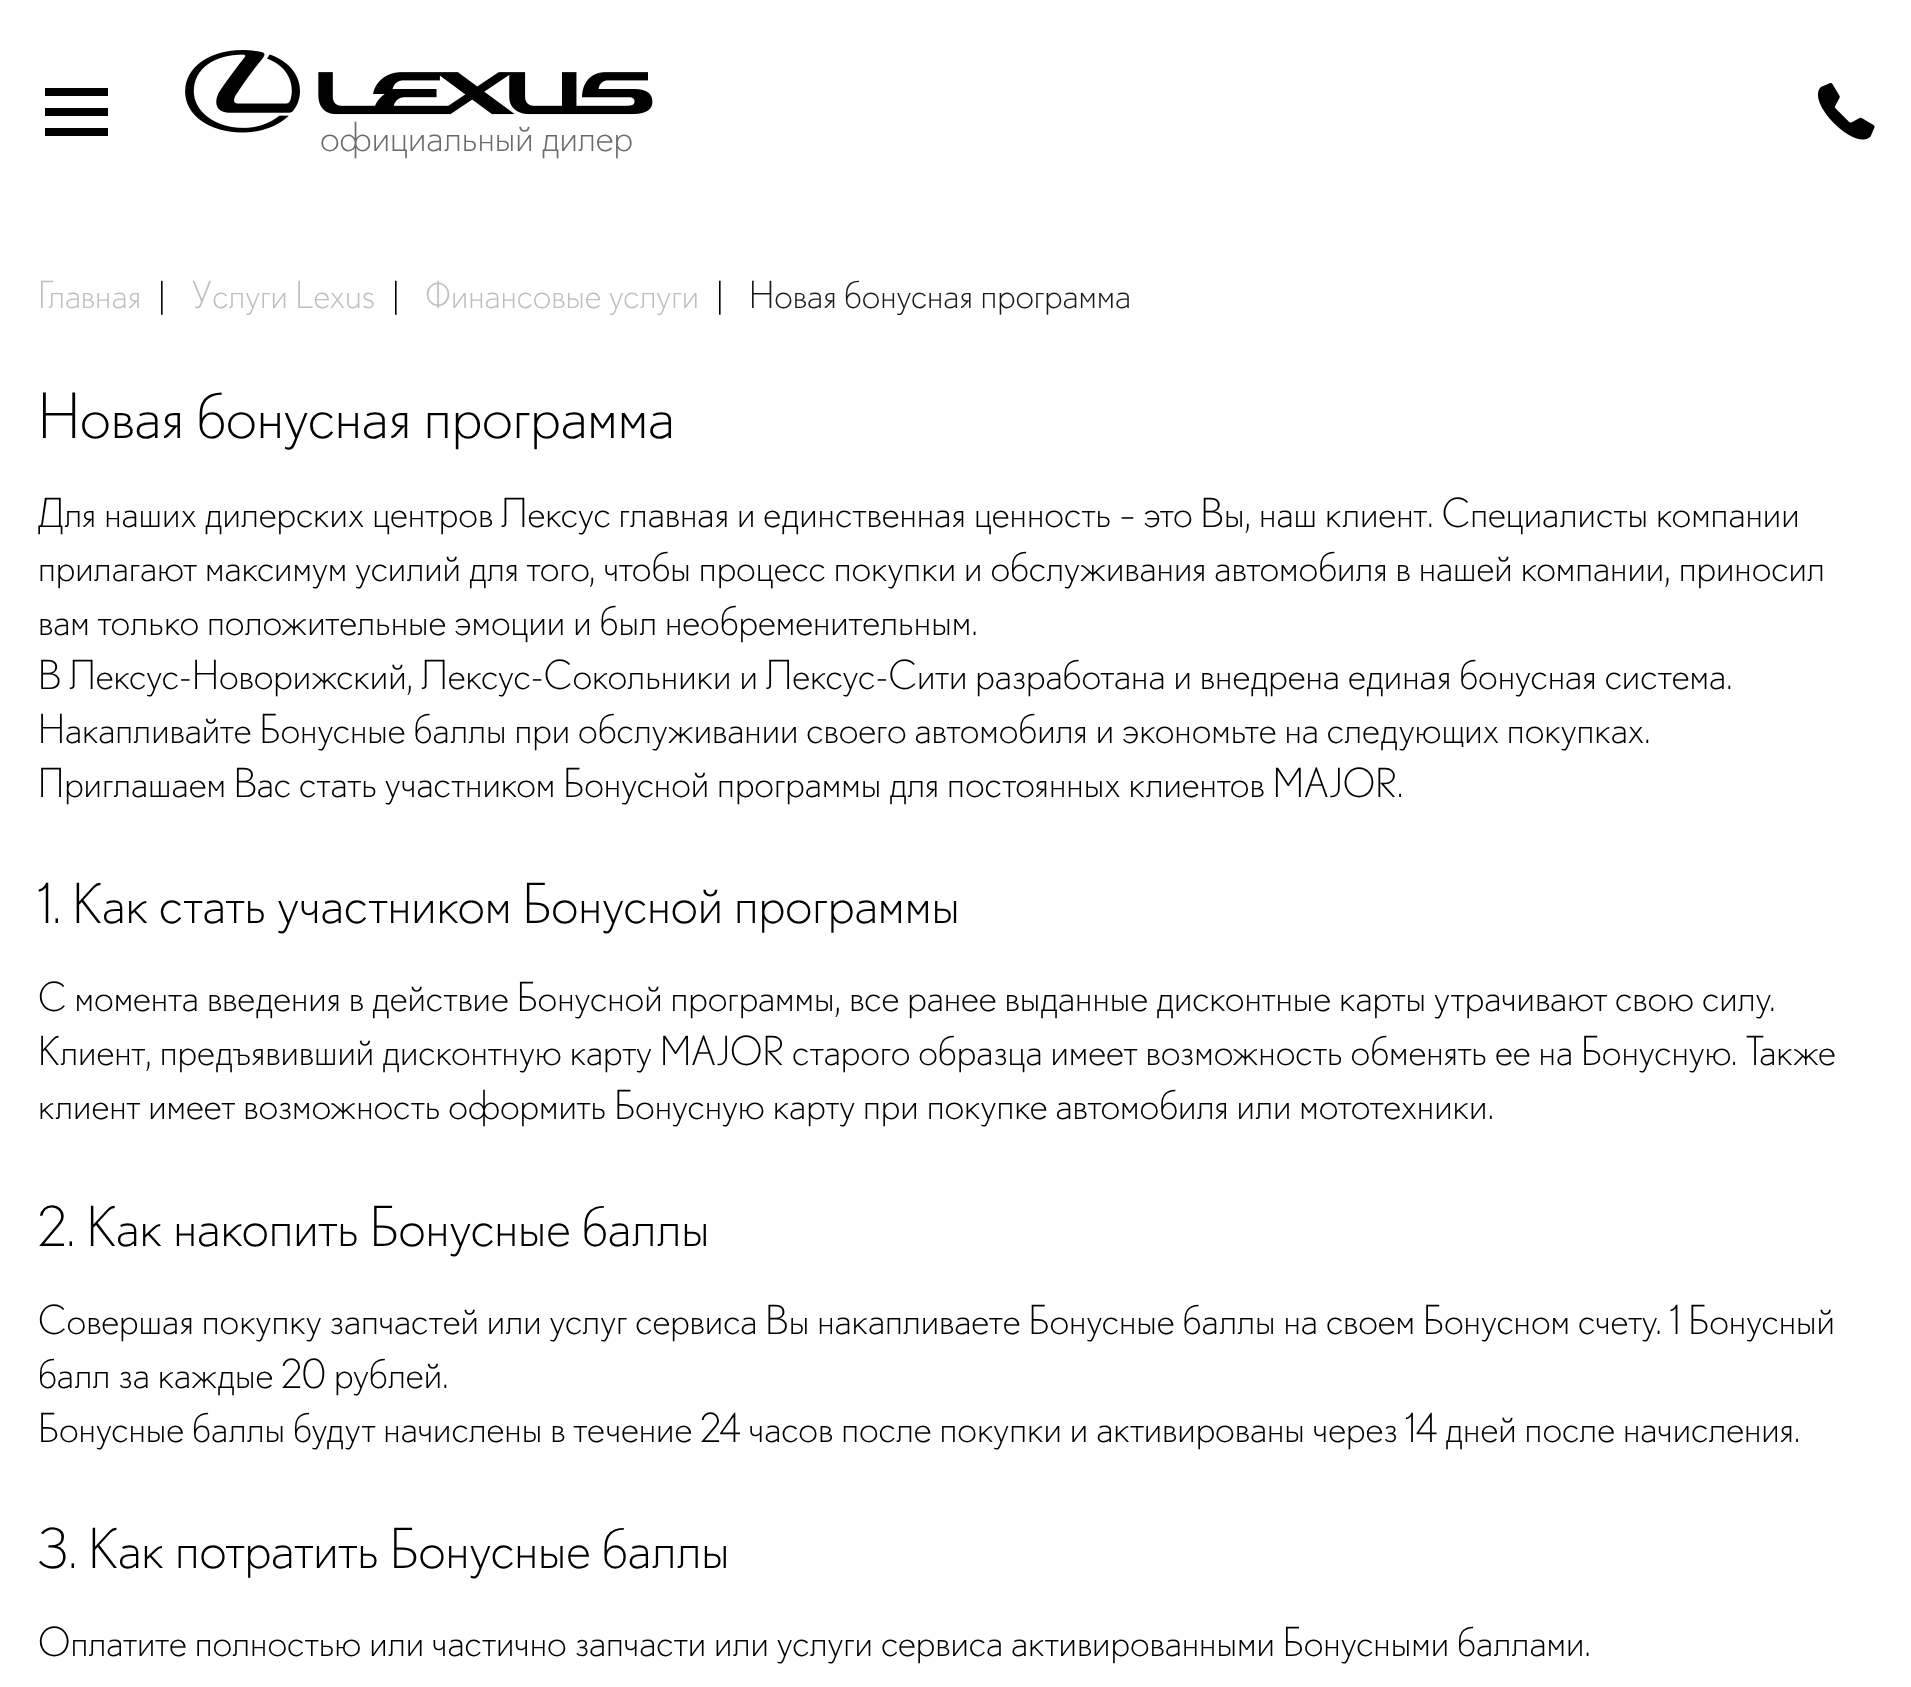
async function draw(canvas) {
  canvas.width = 1911;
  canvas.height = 1687;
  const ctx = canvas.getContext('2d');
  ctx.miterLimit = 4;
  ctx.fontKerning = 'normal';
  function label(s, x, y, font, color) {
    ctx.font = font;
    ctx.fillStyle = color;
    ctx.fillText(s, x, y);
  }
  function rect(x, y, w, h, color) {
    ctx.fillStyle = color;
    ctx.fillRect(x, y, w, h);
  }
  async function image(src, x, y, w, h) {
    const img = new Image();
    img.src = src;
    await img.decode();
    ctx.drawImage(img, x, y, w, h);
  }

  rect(0, 0, 1911, 1687, '#fff');
  rect(45, 88, 63, 8, '#000');
  rect(45, 108, 63, 8, '#000');
  rect(45, 128, 63, 8, '#000');
  await image('assets/img1.png', 1818, 83, 57, 57);
  await image('assets/img2.png', 185, 50, 468, 83);
  label('официальный дилер', 320, 151, '300 40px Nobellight', '#6b6b6b');
  label('Главная', 38, 308, '300 37.5px Nobellight', '#c0bfbf');
  label('|', 158, 308, '300 37.5px Nobellight', '#000');
  label('Услуги Lexus', 191, 308, '300 37.5px Nobellight', '#c0bfbf');
  label('|', 392, 308, '300 37.5px Nobellight', '#000');
  label('Финансовые услуги', 425, 308, '300 37.5px Nobellight', '#c0bfbf');
  label('|', 716, 308, '300 37.5px Nobellight', '#000');
  label('Новая бонусная программа', 749, 308, '300 37.5px Nobellight', '#1a1a1a');
  label('Новая бонусная программа', 38, 438, '300 62.5px Nobellight', '#000');
  label('Для наших дилерских центров Лексус главная и единственная ценность – это Вы, наш клиент. Специалисты компании', 38, 527, '300 40px Nobellight', '#000');
  label('прилагают максимум усилий для того, чтобы процесс покупки и обслуживания автомобиля в нашей компании, приносил', 38, 581, '300 40px Nobellight', '#000');
  label('вам только положительные эмоции и был необременительным.', 38, 635, '300 40px Nobellight', '#000');
  label('В Лексус-Новорижский, Лексус-Сокольники и Лексус-Сити разработана и внедрена единая бонусная система.', 38, 689, '300 40px Nobellight', '#000');
  label('Накапливайте Бонусные баллы при обслуживании своего автомобиля и экономьте на следующих покупках.', 38, 743, '300 40px Nobellight', '#000');
  label('Приглашаем Вас стать участником Бонусной программы для постоянных клиентов MAJOR.', 38, 797, '300 40px Nobellight', '#000');
  label('1. Как стать участником Бонусной программы', 38, 923, '300 55px Nobellight', '#000');
  label('С момента введения в действие Бонусной программы, все ранее выданные дисконтные карты утрачивают свою силу.', 38, 1011, '300 40px Nobellight', '#000');
  label('Клиент, предъявивший дисконтную карту MAJOR старого образца имеет возможность обменять ее на Бонусную. Также', 38, 1065, '300 40px Nobellight', '#000');
  label('клиент имеет возможность оформить Бонусную карту при покупке автомобиля или мототехники.', 38, 1119, '300 40px Nobellight', '#000');
  label('2. Как накопить Бонусные баллы', 38, 1246, '300 55px Nobellight', '#000');
  label('Совершая покупку запчастей или услуг сервиса Вы накапливаете Бонусные баллы на своем Бонусном счету. 1 Бонусный', 38, 1334, '300 40px Nobellight', '#000');
  label('балл за каждые 20 рублей.', 38, 1388, '300 40px Nobellight', '#000');
  label('Бонусные баллы будут начислены в течение 24 часов после покупки и активированы через 14 дней после начисления.', 38, 1442, '300 40px Nobellight', '#000');
  label('3. Как потратить Бонусные баллы', 38, 1568, '300 55px Nobellight', '#000');
  label('Оплатите полностью или частично запчасти или услуги сервиса активированными Бонусными баллами.', 38, 1656, '300 40px Nobellight', '#000');
}

draw(document.querySelector('canvas'));
